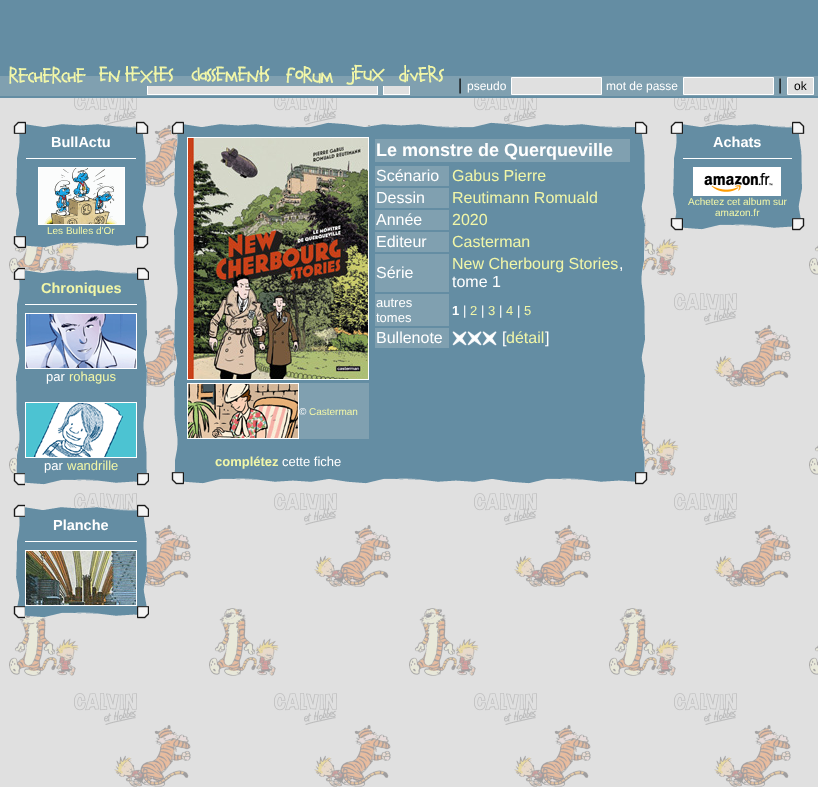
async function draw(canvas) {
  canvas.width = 818;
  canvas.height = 787;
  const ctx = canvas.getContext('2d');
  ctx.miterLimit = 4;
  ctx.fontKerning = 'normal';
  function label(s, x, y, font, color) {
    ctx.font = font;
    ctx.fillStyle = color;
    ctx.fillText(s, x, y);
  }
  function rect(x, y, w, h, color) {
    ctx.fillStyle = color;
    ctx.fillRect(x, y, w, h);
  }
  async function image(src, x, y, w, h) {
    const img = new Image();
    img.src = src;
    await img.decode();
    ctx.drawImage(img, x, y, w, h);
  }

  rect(0, 0, 818, 787, '#e0e0e0');
  await image('assets/img1.png', 9, 98, 809, 689);
  rect(0, 0, 818, 76, '#648da3');
  rect(0, 76, 818, 20, '#80a0b0');
  await image('assets/img2.png', 9, 66, 77, 18);
  rect(148, 86, 229, 8, '#e0e0e0');
  ctx.strokeStyle = '#fff';
  ctx.strokeRect(147.5, 77.5, 230, 17);
  await image('assets/img3.png', 99, 66, 83, 20);
  await image('assets/img4.png', 182, 66, 96, 20);
  await image('assets/img5.png', 278, 66, 62, 20);
  rect(384, 86, 25, 8, '#e0e0e0');
  ctx.strokeRect(383.5, 77.5, 26, 17);
  await image('assets/img6.png', 340, 64, 52, 22);
  await image('assets/img7.png', 392, 65, 60, 21);
  rect(0, 96, 818, 2, '#648da3');
  label('|', 458, 90, '16px Liberation Sans', '#000');
  label('pseudo', 467, 90, '12px Liberation Sans', '#fff');
  ctx.fillStyle = '#e0e0e0';
  ctx.beginPath();
  ctx.rect(511.5, 77.5, 90, 17);
  ctx.fill();
  ctx.stroke();
  label('mot de passe', 606, 90, '12px Liberation Sans', '#fff');
  ctx.fillStyle = '#e0e0e0';
  ctx.beginPath();
  ctx.rect(683.5, 77.5, 90, 17);
  ctx.fill();
  ctx.stroke();
  label('|', 778, 90, '16px Liberation Sans', '#000');
  ctx.fillStyle = '#e0e0e0';
  ctx.beginPath();
  ctx.rect(787.5, 77.5, 26, 17);
  ctx.fill();
  ctx.stroke();
  label('ok', 794, 90, '12px Liberation Sans', '#000');
  await image('assets/img8.png', 13, 121, 13, 13);
  await image('assets/img9.png', 26, 124, 110, 10);
  await image('assets/img10.png', 136, 121, 13, 13);
  await image('assets/img11.png', 16, 134, 10, 102);
  rect(26, 134, 110, 102, '#648da3');
  label('BullActu', 51, 147, 'bold 14.5px Liberation Sans', '#fff');
  rect(26, 158, 110, 1, '#fff');
  ctx.strokeRect(38.5, 167.5, 86, 57);
  await image('assets/img12.png', 39, 168, 85, 56);
  label('Les Bulles d\'Or', 47, 234, '10px Liberation Sans', '#f1f6a8');
  await image('assets/img13.png', 136, 134, 10, 102);
  await image('assets/img14.png', 13, 236, 13, 13);
  await image('assets/img15.png', 26, 236, 110, 12);
  await image('assets/img16.png', 136, 236, 13, 13);
  await image('assets/img17.png', 13, 267, 12, 13);
  await image('assets/img18.png', 25, 270, 112, 10);
  await image('assets/img19.png', 137, 267, 12, 13);
  await image('assets/img20.png', 16, 280, 9, 193);
  rect(25, 280, 112, 193, '#648da3');
  label('Chroniques', 41, 293, 'bold 14.5px Liberation Sans', '#f1f6a8');
  rect(25, 304, 112, 1, '#fff');
  ctx.strokeRect(25.5, 313.5, 111, 55);
  await image('assets/img21.png', 26, 314, 110, 54);
  label('par', 46, 381, '13px Liberation Sans', '#fff');
  label('rohagus', 69, 381, '13px Liberation Sans', '#f1f6a8');
  ctx.strokeRect(25.5, 402.5, 111, 55);
  await image('assets/img22.png', 26, 403, 110, 54);
  label('par', 44, 470, '13px Liberation Sans', '#fff');
  label('wandrille', 67, 470, '13px Liberation Sans', '#f1f6a8');
  await image('assets/img23.png', 137, 280, 10, 193);
  await image('assets/img24.png', 13, 473, 12, 13);
  await image('assets/img25.png', 25, 473, 112, 12);
  await image('assets/img26.png', 137, 473, 12, 13);
  await image('assets/img27.png', 13, 504, 12, 13);
  await image('assets/img28.png', 25, 507, 112, 10);
  await image('assets/img19.png', 137, 504, 12, 13);
  await image('assets/img29.png', 16, 517, 9, 89);
  rect(25, 517, 112, 33, '#648da3');
  label('Planche', 53, 530, 'bold 14.5px Liberation Sans', '#fff');
  rect(25, 541, 112, 1, '#fff');
  ctx.strokeRect(25.5, 550.5, 111, 55);
  await image('assets/img30.png', 26, 551, 110, 54);
  await image('assets/img31.png', 137, 517, 10, 89);
  await image('assets/img24.png', 13, 606, 12, 13);
  await image('assets/img32.png', 25, 606, 112, 12);
  await image('assets/img26.png', 137, 606, 12, 13);
  await image('assets/img8.png', 171, 121, 13, 13);
  await image('assets/img33.png', 184, 122, 451, 12);
  await image('assets/img10.png', 635, 121, 13, 13);
  await image('assets/img34.png', 174, 134, 10, 338);
  rect(184, 134, 451, 338, '#648da3');
  rect(375, 139, 255, 23, '#80a0b0');
  label('Le monstre de Querqueville', 376, 156, 'bold 18px Liberation Sans', '#fff');
  rect(375, 166, 74, 20, '#80a0b0');
  label('Scénario', 376, 181, '16px Liberation Sans', '#fff');
  label('Gabus Pierre', 452, 181, '16px Liberation Sans', '#f1f6a8');
  rect(375, 188, 74, 20, '#80a0b0');
  label('Dessin', 376, 203, '16px Liberation Sans', '#fff');
  label('Reutimann Romuald', 452, 203, '16px Liberation Sans', '#f1f6a8');
  rect(375, 210, 74, 20, '#80a0b0');
  label('Année', 376, 225, '16px Liberation Sans', '#fff');
  label('2020', 452, 225, '16px Liberation Sans', '#f1f6a8');
  rect(375, 232, 74, 20, '#80a0b0');
  label('Editeur', 376, 247, '16px Liberation Sans', '#fff');
  label('Casterman', 452, 247, '16px Liberation Sans', '#f1f6a8');
  rect(375, 254, 74, 38, '#80a0b0');
  label('Série', 376, 278, '16px Liberation Sans', '#fff');
  label('New Cherbourg Stories', 452, 269, '16px Liberation Sans', '#f1f6a8');
  label(',', 619, 269, '16px Liberation Sans', '#fff');
  label('tome 1', 452, 287, '16px Liberation Sans', '#fff');
  rect(375, 294, 74, 32, '#80a0b0');
  label('autres', 376, 307, '13px Liberation Sans', '#fff');
  label('tomes', 376, 322, '13px Liberation Sans', '#fff');
  label('1', 452, 315, 'bold 13px Liberation Sans', '#fff');
  label('|', 463, 315, '13px Liberation Sans', '#fff');
  label('2', 470, 315, '13px Liberation Sans', '#f1f6a8');
  label('|', 481, 315, '13px Liberation Sans', '#fff');
  label('3', 488, 315, '13px Liberation Sans', '#f1f6a8');
  label('|', 499, 315, '13px Liberation Sans', '#fff');
  label('4', 506, 315, '13px Liberation Sans', '#f1f6a8');
  label('|', 517, 315, '13px Liberation Sans', '#fff');
  label('5', 524, 315, '13px Liberation Sans', '#f1f6a8');
  rect(375, 328, 74, 20, '#80a0b0');
  label('Bullenote', 376, 343, '16px Liberation Sans', '#fff');
  await image('assets/img35.png', 452, 331, 15, 15);
  await image('assets/img35.png', 467, 331, 15, 15);
  await image('assets/img35.png', 482, 331, 15, 15);
  label('[', 502, 343, '16px Liberation Sans', '#fff');
  label('détail', 506, 343, '16px Liberation Sans', '#f1f6a8');
  label(']', 545, 343, '16px Liberation Sans', '#fff');
  ctx.strokeRect(187.5, 137.5, 181, 242);
  await image('assets/img36.png', 188, 138, 180, 241);
  ctx.strokeRect(187.5, 383.5, 111, 55);
  await image('assets/img37.png', 188, 384, 110, 54);
  rect(299, 383, 70, 56, '#80a0b0');
  label('©', 299, 415, '10px Liberation Sans', '#fff');
  label('Casterman', 309, 415, '10px Liberation Sans', '#f1f6a8');
  label('complétez', 215, 466, 'bold 13px Liberation Sans', '#f1f6a8');
  label('cette fiche', 282, 466, '13px Liberation Sans', '#fff');
  await image('assets/img38.png', 635, 134, 10, 338);
  await image('assets/img39.png', 171, 472, 13, 13);
  await image('assets/img40.png', 184, 472, 451, 12);
  await image('assets/img16.png', 635, 472, 13, 13);
  await image('assets/img8.png', 670, 121, 13, 13);
  await image('assets/img41.png', 683, 124, 109, 10);
  await image('assets/img10.png', 792, 121, 13, 13);
  await image('assets/img42.png', 673, 134, 10, 84);
  rect(683, 134, 109, 84, '#648da3');
  label('Achats', 713, 147, 'bold 14.5px Liberation Sans', '#fff');
  rect(683, 158, 109, 1, '#fff');
  ctx.strokeRect(693.5, 167.5, 87, 28);
  await image('assets/img43.png', 694, 168, 86, 27);
  label('Achetez cet album sur', 688, 205, '10px Liberation Sans', '#f1f6a8');
  label('amazon.fr', 715, 216, '10px Liberation Sans', '#f1f6a8');
  await image('assets/img44.png', 792, 134, 10, 84);
  await image('assets/img39.png', 670, 218, 13, 13);
  await image('assets/img45.png', 683, 218, 109, 12);
  await image('assets/img16.png', 792, 218, 13, 13);
}

draw(document.querySelector('canvas'));
